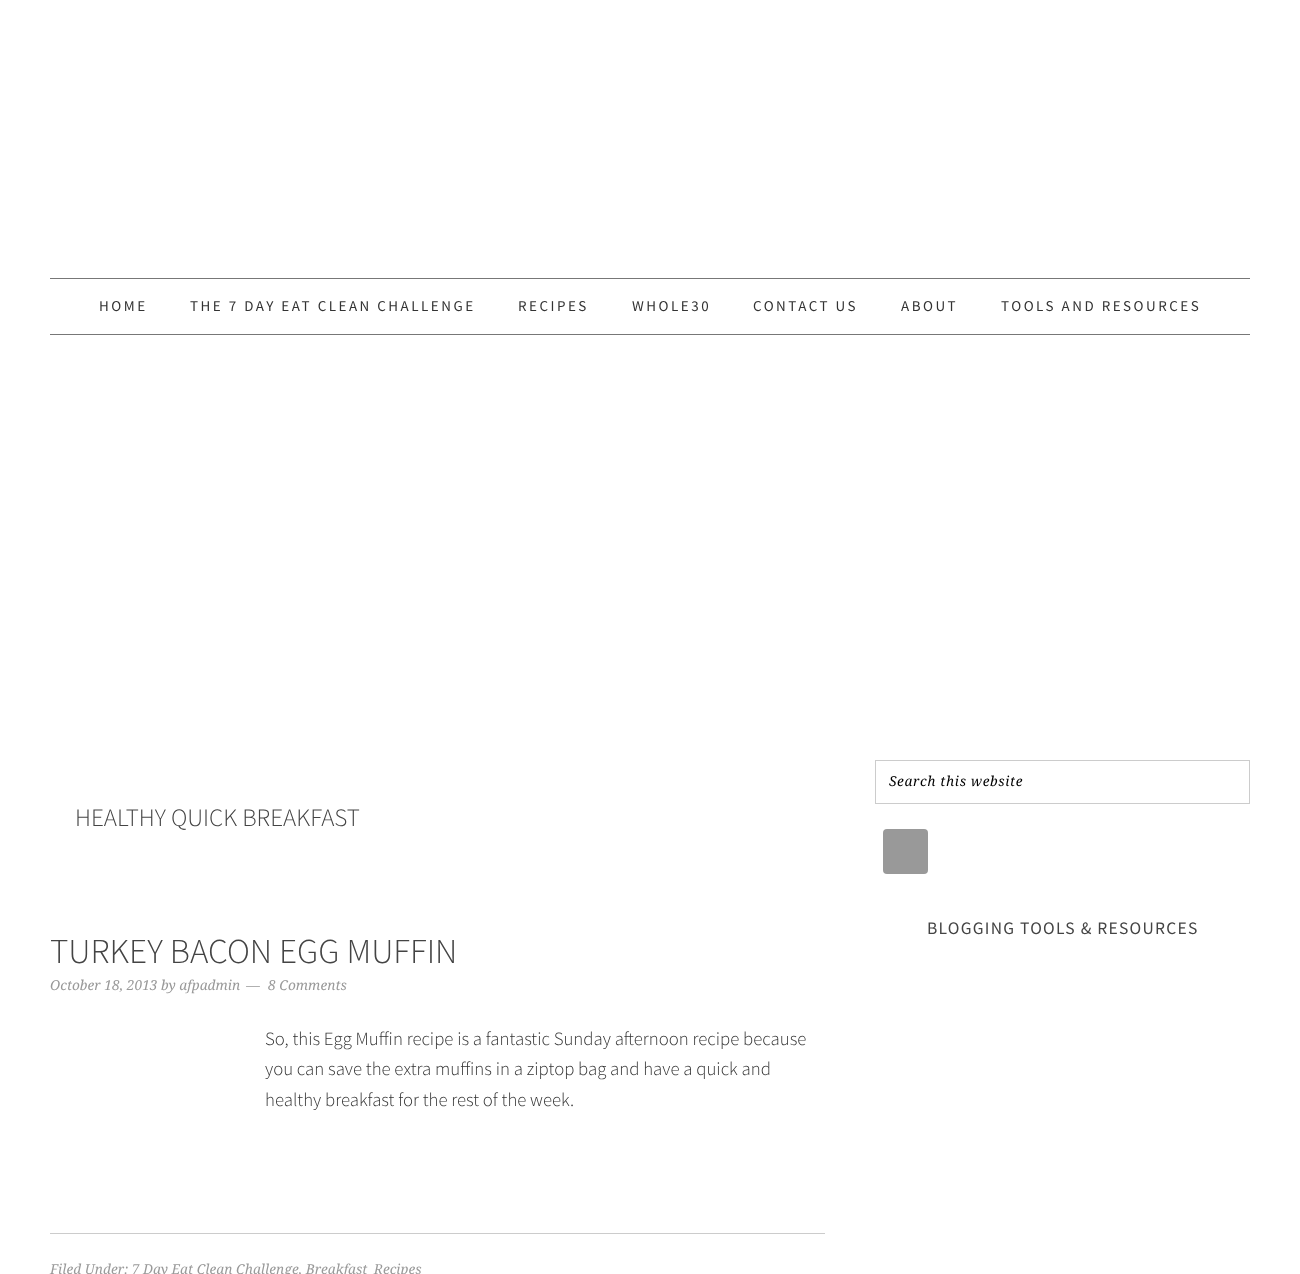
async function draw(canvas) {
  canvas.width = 1300;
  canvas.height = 1274;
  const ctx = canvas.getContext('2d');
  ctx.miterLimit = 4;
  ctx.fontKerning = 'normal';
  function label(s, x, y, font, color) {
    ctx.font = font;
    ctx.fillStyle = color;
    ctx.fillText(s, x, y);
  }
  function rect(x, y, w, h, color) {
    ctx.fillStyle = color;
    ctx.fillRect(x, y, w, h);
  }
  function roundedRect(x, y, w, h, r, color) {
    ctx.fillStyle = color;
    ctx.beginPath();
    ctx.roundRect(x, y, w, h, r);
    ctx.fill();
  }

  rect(0, 0, 1300, 1274, '#fff');
  rect(50, 278, 1200, 1, '#777');
  rect(50, 334, 1200, 1, '#777');
  ctx.letterSpacing = '2.5px';
  label('HOME', 99, 311, '15px Source Sans Pro', '#333');
  label('THE 7 DAY EAT CLEAN CHALLENGE', 190, 311, '15px Source Sans Pro', '#333');
  label('RECIPES', 518, 311, '15px Source Sans Pro', '#333');
  label('WHOLE30', 632, 311, '15px Source Sans Pro', '#333');
  label('CONTACT US', 753, 311, '15px Source Sans Pro', '#333');
  label('ABOUT', 901, 311, '15px Source Sans Pro', '#333');
  label('TOOLS AND RESOURCES', 1001, 311, '15px Source Sans Pro', '#333');
  ctx.letterSpacing = '0px';
  label('HEALTHY QUICK BREAKFAST', 75, 826, '300 25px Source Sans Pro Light', '#444');
  label('TURKEY BACON EGG MUFFIN', 50, 963, '300 35px Source Sans Pro Light', '#444');
  label('October 18, 2013 by afpadmin', 50, 990, 'italic 13.75px Droid Serif', '#999');
  label('—', 246, 990, 'italic 13.75px Droid Serif', '#999');
  label('8 Comments', 268, 990, 'italic 13.75px Droid Serif', '#999');
  label('So, this Egg Muffin recipe is a fantastic Sunday afternoon recipe because', 265, 1045, '300 18.75px Source Sans Pro Light', '#333');
  label('you can save the extra muffins in a ziptop bag and have a quick and', 265, 1075, '300 18.75px Source Sans Pro Light', '#333');
  label('healthy breakfast for the rest of the week.', 265, 1106, '300 18.75px Source Sans Pro Light', '#333');
  rect(50, 1233, 775, 1, '#ccc');
  label('Filed Under: 7 Day Eat Clean Challenge, Breakfast', 50, 1274, 'italic 13.75px Droid Serif', '#999');
  label('Recipes', 374, 1274, 'italic 13.75px Droid Serif', '#999');
  ctx.strokeStyle = '#ccc';
  ctx.strokeRect(875.5, 760.5, 374, 43);
  ctx.letterSpacing = '0.6px';
  label('Search this website', 889, 786, 'italic 13.75px Droid Serif', '#000');
  roundedRect(883, 829, 45, 45, 4, '#999');
  ctx.letterSpacing = '1.25px';
  label('BLOGGING TOOLS & RESOURCES', 927, 934, '17.5px Source Sans Pro', '#444');
}

draw(document.querySelector('canvas'));
